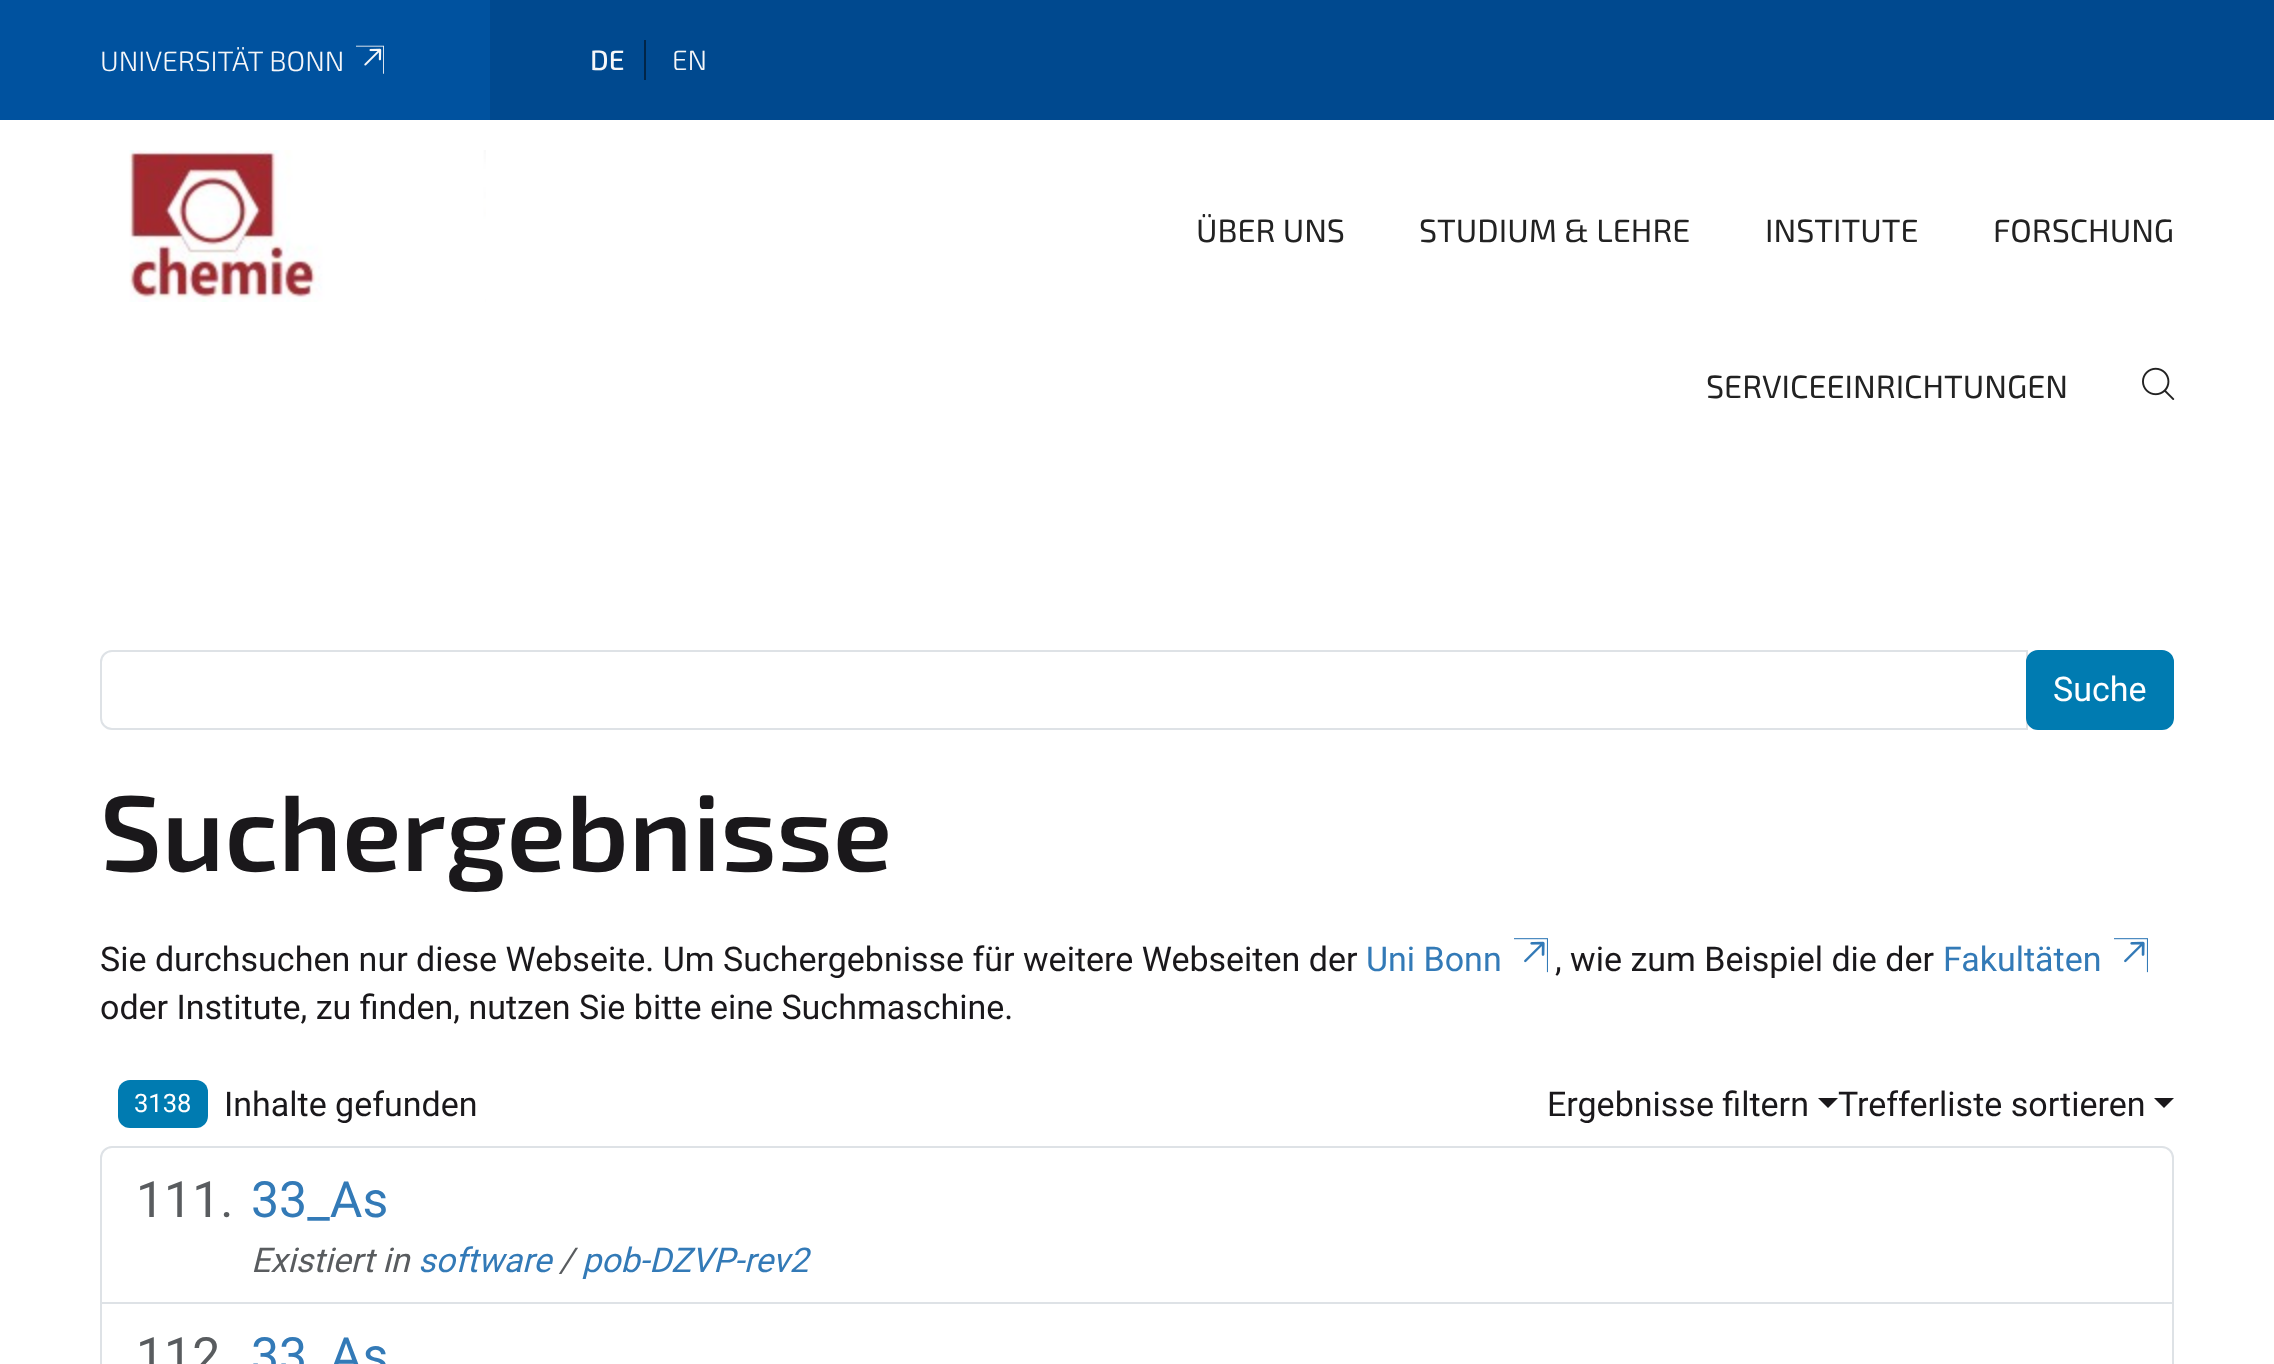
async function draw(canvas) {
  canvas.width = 2274;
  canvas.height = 1364;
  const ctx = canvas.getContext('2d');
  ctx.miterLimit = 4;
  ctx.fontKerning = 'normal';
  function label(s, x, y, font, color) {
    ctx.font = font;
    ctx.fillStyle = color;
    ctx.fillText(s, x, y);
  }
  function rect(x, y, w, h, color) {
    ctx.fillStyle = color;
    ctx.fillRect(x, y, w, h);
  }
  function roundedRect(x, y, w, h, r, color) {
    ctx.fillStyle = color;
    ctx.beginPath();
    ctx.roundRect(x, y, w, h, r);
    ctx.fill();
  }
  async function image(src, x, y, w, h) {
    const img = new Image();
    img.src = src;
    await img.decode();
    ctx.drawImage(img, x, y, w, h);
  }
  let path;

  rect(0, 0, 2274, 1364, '#fff');
  rect(490, 0, 1784, 120, '#00498f');
  rect(0, 0, 490, 120, '#00529f');
  label('UNIVERSITÄT BONN', 100, 71, '300 28px "Exo 2"', '#f6f7f9');
  await image('assets/img1.png', 356, 45, 28, 29);
  rect(644, 40, 2, 40, '#012548');
  label('DE', 590, 70, '500 28px "Exo 2"', '#f6f7f9');
  label('EN', 672, 70, '300 28px "Exo 2"', '#f6f7f9');
  await image('assets/img2.png', 129, 150, 357, 152);
  label('ÜBER UNS', 1196, 242, '32.25px "Exo 2"', '#222');
  label('STUDIUM & LEHRE', 1419, 242, '32.25px "Exo 2"', '#222');
  label('INSTITUTE', 1765, 242, '32.25px "Exo 2"', '#222');
  label('FORSCHUNG', 1993, 242, '32.25px "Exo 2"', '#222');
  label('SERVICEEINRICHTUNGEN', 1706, 398, '32.25px "Exo 2"', '#222');
  await image('assets/img3.png', 2142, 367, 33, 33);
  ctx.beginPath();
  ctx.roundRect(101, 651, 1926, 78, [11, 0, 0, 11]);
  ctx.strokeStyle = '#dee2e6';
  ctx.lineWidth = 2;
  ctx.stroke();
  ctx.fillStyle = '#007bb1';
  ctx.beginPath();
  ctx.roundRect(2027, 651, 146, 78, 11);
  ctx.fill();
  ctx.strokeStyle = '#007bb1';
  ctx.stroke();
  label('Suche', 2053, 701, '34px Roboto', '#fff');
  label('Suchergebnisse', 100, 871, '600 107.5px "Exo 2"', '#1a181b');
  label('Sie durchsuchen nur diese Webseite. Um Suchergebnisse für weitere Webseiten der', 100, 971, '34px Roboto', '#1a181b');
  label('Uni Bonn', 1366, 971, '34px Roboto', '#337ab7');
  await image('assets/img4.png', 1514, 938, 34, 35);
  label(', wie zum Beispiel die der', 1555, 971, '34px Roboto', '#1a181b');
  label('Fakultäten', 1943, 971, '34px Roboto', '#337ab7');
  await image('assets/img4.png', 2114, 938, 34, 35);
  label('oder Institute, zu finden, nutzen Sie bitte eine Suchmaschine.', 100, 1019, '34px Roboto', '#1a181b');
  roundedRect(118, 1080, 90, 48, 12, '#007bb1');
  label('3138', 134, 1112, '25.5px Roboto', '#fff');
  label('Inhalte gefunden', 224, 1116, '34px Roboto', '#1a181b');
  label('Ergebnisse filtern', 1547, 1116, '34px Roboto', '#1a181b');
  path = new Path2D('M1818 1098H1838L1828 1108Z');
  ctx.fill(path);
  label('Trefferliste sortieren', 1838, 1116, '34px Roboto', '#1a181b');
  path = new Path2D('M2154 1098H2174L2164 1108Z');
  ctx.fill(path);
  ctx.beginPath();
  ctx.roundRect(101, 1147, 2072, 156, [11, 11, 0, 0]);
  ctx.strokeStyle = '#dee2e6';
  ctx.stroke();
  label('111.', 136, 1217, '50px Roboto', '#595c5f');
  label('33_As', 251, 1217, '50px Roboto', '#337ab7');
  label('Existiert in', 251, 1272, 'italic 34px Roboto', '#595c5f');
  label('software', 418, 1272, 'italic 34px Roboto', '#337ab7');
  label('/', 559, 1272, 'italic 34px Roboto', '#595c5f');
  label('pob-DZVP-rev2', 582, 1272, 'italic 34px Roboto', '#337ab7');
  rect(2172, 1304, 2, 60, '#dee2e6');
  rect(100, 1304, 2, 60, '#dee2e6');
  label('112', 136, 1373, '50px Roboto', '#595c5f');
  label('33_As', 251, 1373, '50px Roboto', '#337ab7');
}

draw(document.querySelector('canvas'));
